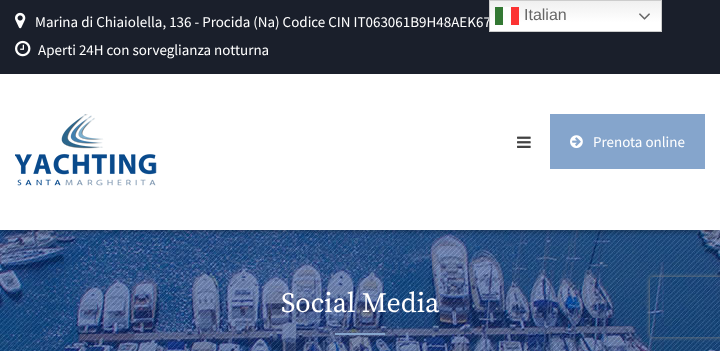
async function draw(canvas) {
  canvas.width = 720;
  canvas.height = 351;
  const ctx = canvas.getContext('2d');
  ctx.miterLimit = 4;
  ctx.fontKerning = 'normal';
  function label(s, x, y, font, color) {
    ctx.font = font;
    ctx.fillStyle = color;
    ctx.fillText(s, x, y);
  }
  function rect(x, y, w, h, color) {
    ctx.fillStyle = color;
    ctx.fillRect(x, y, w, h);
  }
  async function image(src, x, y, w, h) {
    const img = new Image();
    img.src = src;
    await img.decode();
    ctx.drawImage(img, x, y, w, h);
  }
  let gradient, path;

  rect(0, 0, 720, 351, '#fff');
  rect(0, 0, 720, 74, '#1a1f2b');
  label('Marina di Chiaiolella, 136 - Procida (Na) Codice CIN IT063061B9H48AEK67', 35, 27, '15px Source Sans Pro', '#fff');
  gradient = ctx.createLinearGradient(576, 0, 576, 32);
  gradient.addColorStop(0, '#efefef');
  gradient.addColorStop(0.7, '#fff');
  ctx.fillStyle = gradient;
  ctx.fillRect(490, 1, 171, 30);
  ctx.strokeStyle = '#ccc';
  ctx.strokeRect(489.5, 0.5, 172, 31);
  rect(495, 7, 8, 18, '#337833');
  rect(503, 7, 8, 18, '#ffffffcc');
  rect(511, 7, 8, 18, '#fc3333');
  label('Italian', 524, 20, '16px Liberation Sans', '#666');
  await image('assets/img1.png', 639, 13, 11, 7);
  await image('assets/img2.png', 15, 12, 11, 17);
  await image('assets/img3.png', 15, 40, 16, 17);
  label('Aperti 24H con sorveglianza notturna', 38, 55, '15px Source Sans Pro', '#fff');
  await image('assets/img7.png', 0, 230, 720, 121);
  ctx.save();
  ctx.beginPath();
  ctx.rect(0, 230, 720, 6);
  ctx.clip();
  ctx.fillStyle = '#0000004d';
  ctx.filter = 'blur(2.5px)';
  ctx.beginPath();
  ctx.rect(1, 78, 718, 154);
  ctx.fill();
  ctx.filter = 'none';
  ctx.restore();
  await image('assets/img4.png', 15, 114, 142, 72);
  await image('assets/img5.png', 517, 136, 14, 12);
  rect(550, 114, 155, 55, '#85a5cc');
  await image('assets/img6.png', 570, 135, 13, 14);
  label('Prenota online', 593, 147, '15px Source Sans Pro', '#fff');
  label('Social Media', 281, 312, '28px Source Serif Pro', '#fff');
  rect(335, 333, 50, 2, '#85a5cc');
  ctx.save();
  path = new Path2D('M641 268H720V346H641ZM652 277H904C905 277 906 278 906 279V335C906 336 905 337 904 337H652C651 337 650 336 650 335V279C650 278 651 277 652 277Z');
  ctx.clip(path, 'evenodd');
  ctx.fillStyle = '#808080';
  ctx.filter = 'blur(2.5px)';
  ctx.beginPath();
  ctx.roundRect(650, 277, 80, 60, 2);
  ctx.fill();
  ctx.filter = 'none';
  ctx.restore();
}

draw(document.querySelector('canvas'));
